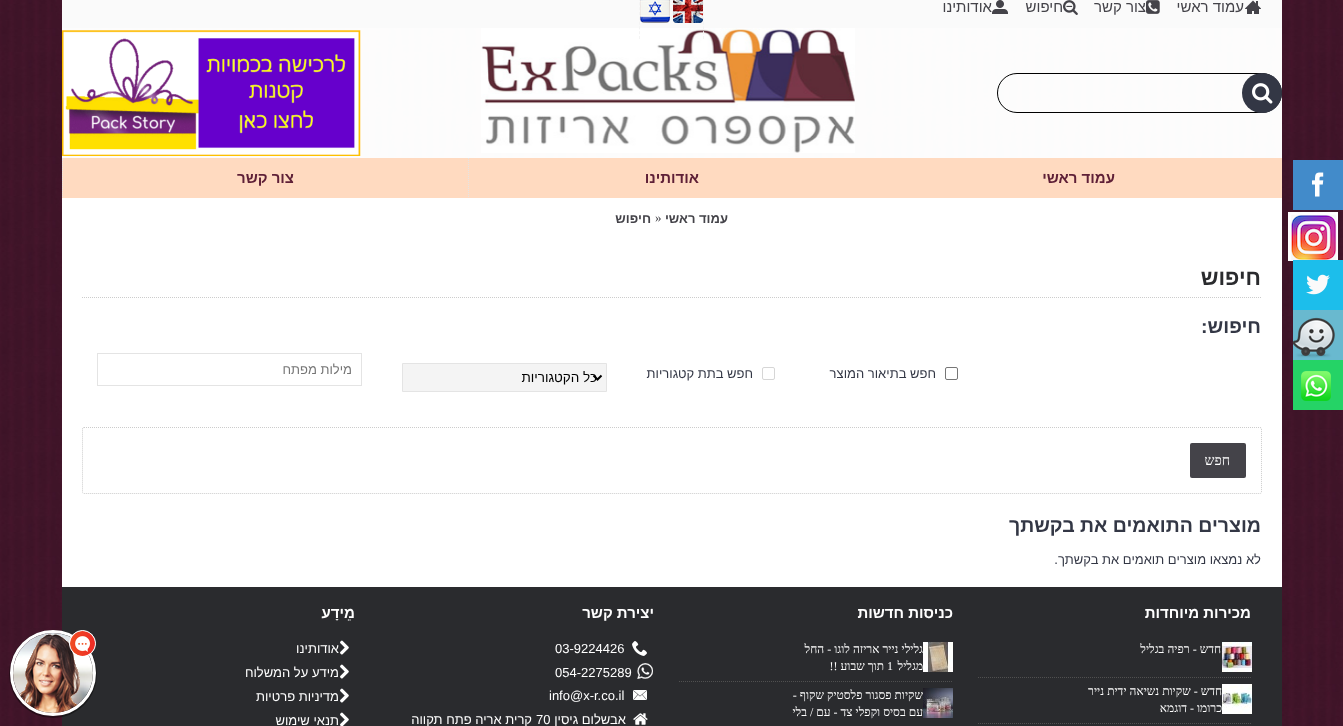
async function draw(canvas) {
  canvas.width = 1343;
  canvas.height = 726;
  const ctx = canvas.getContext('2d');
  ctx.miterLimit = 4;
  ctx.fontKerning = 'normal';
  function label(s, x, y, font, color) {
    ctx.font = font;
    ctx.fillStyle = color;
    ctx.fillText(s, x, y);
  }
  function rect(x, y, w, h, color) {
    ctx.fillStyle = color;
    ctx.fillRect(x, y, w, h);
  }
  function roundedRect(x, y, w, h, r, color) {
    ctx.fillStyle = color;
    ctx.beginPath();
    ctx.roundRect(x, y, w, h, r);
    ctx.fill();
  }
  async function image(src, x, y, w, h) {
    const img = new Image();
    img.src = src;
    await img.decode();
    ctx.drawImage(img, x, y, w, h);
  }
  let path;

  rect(0, 0, 1343, 726, '#fff');
  await image('assets/img1.png', 0, 0, 1343, 726);
  rect(1293, 160, 50, 50, '#428bca');
  await image('assets/img2.png', 1312, 172, 12, 25);
  rect(62, 28, 1220, 130, '#fffffffc');
  rect(62, 0, 1220, 28, '#fafafa');
  await image('assets/img3.png', 1245, 0, 16, 14);
  ctx.direction = 'rtl';
  label('עמוד ראשי', 1244, 12, '15px Liberation Sans', '#444349');
  await image('assets/img4.png', 1146, 0, 14, 14);
  label('צור קשר', 1146, 12, '15px Liberation Sans', '#444349');
  await image('assets/img5.png', 1063, 0, 15, 15);
  label('חיפוש', 1063, 12, '15px Liberation Sans', '#444349');
  await image('assets/img6.png', 992, 0, 16, 14);
  label('אודותינו', 992, 12, '15px Liberation Sans', '#444349');
  await image('assets/img10.png', 481, 28, 374, 125);
  path = new Path2D('M703.5-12V39');
  ctx.strokeStyle = '#f4f4f4';
  ctx.setLineDash([3, 1.8]);
  ctx.stroke(path);
  path = new Path2D('M639.5-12V39');
  ctx.stroke(path);
  await image('assets/img7.png', 673, 0, 30, 23);
  await image('assets/img8.png', 640, 0, 30, 23);
  ctx.beginPath();
  ctx.roundRect(997.5, 73.5, 284, 39, 19.5);
  ctx.strokeStyle = '#000';
  ctx.setLineDash([]);
  ctx.stroke();
  ctx.fillStyle = '#333745';
  ctx.beginPath();
  ctx.arc(1262, 93, 20, 0, 2 * Math.PI);
  ctx.fill();
  await image('assets/img9.png', 1252, 83, 21, 21);
  await image('assets/img11.png', 62, 30, 299, 126);
  rect(62, 158, 1220, 40, '#ffdac0');
  label('עמוד ראשי', 1115, 183, 'bold 15px Liberation Sans', '#5f2037');
  path = new Path2D('M468.5 158V198');
  ctx.strokeStyle = '#e4e4e4';
  ctx.setLineDash([1, 1]);
  ctx.stroke(path);
  label('אודותינו', 699, 183, 'bold 15px Liberation Sans', '#5f2037');
  path = new Path2D('M62.5 158V198');
  ctx.stroke(path);
  label('צור קשר', 294, 183, 'bold 15px Liberation Sans', '#5f2037');
  rect(62, 198, 1220, 389, '#fff');
  label('עמוד ראשי', 728, 223, 'bold 13px Liberation Sans', '#444349');
  ctx.direction = 'ltr';
  label('»', 655, 222, '13px Liberation Serif', '#444349');
  ctx.direction = 'rtl';
  label('חיפוש', 651, 223, 'bold 13px Liberation Sans', '#444349');
  path = new Path2D('M82 297.5H1262');
  ctx.strokeStyle = '#ccc';
  ctx.stroke(path);
  label('חיפוש', 1261, 285, 'bold 22px Liberation Sans', '#2a2b2e');
  label('חיפוש:', 1261, 333, 'bold 19.5px Liberation Sans', '#333745');
  ctx.beginPath();
  ctx.roundRect(945.5, 367.5, 12, 12, 1.5);
  ctx.strokeStyle = '#767676';
  ctx.setLineDash([]);
  ctx.stroke();
  label('חפש בתיאור המוצר', 936, 378, '13px Liberation Sans', '#333745');
  ctx.beginPath();
  ctx.roundRect(762.5, 367.5, 12, 12, 1.5);
  ctx.strokeStyle = '#d6d6d6';
  ctx.stroke();
  label('חפש בתת קטגוריות', 753, 378, '13px Liberation Sans', '#333745');
  ctx.fillStyle = '#f4f4f4';
  ctx.beginPath();
  ctx.rect(402.5, 363.5, 204, 28);
  ctx.fill();
  ctx.strokeStyle = '#e4e4e4';
  ctx.stroke();
  path = new Path2D('M593.5 375.5L597.5 379.5L601.5 375.5');
  ctx.strokeStyle = '#000';
  ctx.lineWidth = 2;
  ctx.stroke(path);
  label('כל הקטגוריות', 597, 382, '13.5px Liberation Sans', '#000');
  ctx.strokeStyle = '#e4e4e4';
  ctx.lineWidth = 1;
  ctx.strokeRect(97.5, 353.5, 264, 32);
  label('מילות מפתח', 352, 374, '13px Liberation Sans', '#757575');
  path = new Path2D('M84 427.5H1260C1261 427.5 1261.5 428 1261.5 429V492C1261.5 493 1261 493.5 1260 493.5H84C83 493.5 82.5 493 82.5 492V429C82.5 428 83 427.5 84 427.5Z');
  ctx.strokeStyle = '#ccc';
  ctx.setLineDash([1, 1]);
  ctx.stroke(path);
  roundedRect(1190, 443, 56, 35, 2, '#444349');
  label('חפש', 1230, 465, '14px Liberation Serif', '#fff');
  label('מוצרים התואמים את בקשתך', 1261, 532, 'bold 19.5px Liberation Sans', '#333745');
  label('לא נמצאו מוצרים תואמים את בקשתך.', 1261, 564, '13px Liberation Sans', '#333745');
  rect(62, 587, 1220, 139, '#2a2b2e');
  label('מכירות מיוחדות', 1251, 618, 'bold 15px Liberation Sans', '#fff');
  path = new Path2D('M978 677.5H1252');
  ctx.strokeStyle = '#505050';
  ctx.stroke(path);
  await image('assets/img12.png', 1222, 642, 30, 30);
  label('חדש - רפיה בגליל', 1221, 653, '12px Liberation Serif', '#fff');
  path = new Path2D('M978 723.5H1252');
  ctx.stroke(path);
  await image('assets/img13.png', 1222, 684, 30, 30);
  label('חדש - שקיות נשיאה ידית נייר', 1222, 695, '12px Liberation Serif', '#fff');
  label('כרומו - דוגמא', 1222, 712, '12px Liberation Serif', '#fff');
  label('כניסות חדשות', 953, 618, 'bold 15px Liberation Sans', '#fff');
  path = new Path2D('M679 681.5H953');
  ctx.stroke(path);
  await image('assets/img14.png', 923, 642, 30, 30);
  label('גלילי נייר אריזה לוגו - החל', 923, 653, '12px Liberation Serif', '#fff');
  label('מגליל', 923, 670, '12px Liberation Serif', '#fff');
  ctx.direction = 'ltr';
  label('1', 887, 670, '12px Liberation Serif', '#fff');
  ctx.direction = 'rtl';
  label('תוך שבוע !!', 884, 670, '12px Liberation Serif', '#fff');
  await image('assets/img15.png', 923, 688, 30, 30);
  label('שקיות פסגור פלסטיק שקוף -', 923, 699, '12px Liberation Serif', '#fff');
  label('עם בסיס וקפלי צד - עם / בלי', 923, 716, '12px Liberation Serif', '#fff');
  label('יצירת קשר', 654, 618, 'bold 15px Liberation Sans', '#fff');
  await image('assets/img16.png', 632, 641, 15, 15);
  ctx.direction = 'ltr';
  label('03-9224426', 555, 653, '13px Liberation Sans', '#fff');
  await image('assets/img17.png', 637, 663, 16, 16);
  label('054-2275289', 555, 677, '13px Liberation Sans', '#fff');
  await image('assets/img18.png', 633, 690, 14, 10);
  label('info@x-r.co.il', 549, 700, '13px Liberation Sans', '#fff');
  await image('assets/img19.png', 633, 713, 15, 12);
  ctx.direction = 'rtl';
  label('אבשלום גיסין', 626, 724, '13px Liberation Sans', '#fff');
  ctx.direction = 'ltr';
  label('70', 536, 724, '13px Liberation Sans', '#fff');
  ctx.direction = 'rtl';
  label('קרית אריה פתח תקווה', 532, 724, '13px Liberation Sans', '#fff');
  label('מֵידָע', 355, 618, 'bold 15px Liberation Sans', '#fff');
  await image('assets/img20.png', 340, 640, 9, 15);
  label('אודותינו', 339, 653, '13px Liberation Sans', '#fff');
  await image('assets/img20.png', 340, 664, 9, 15);
  label('מידע על המשלוח', 339, 677, '13px Liberation Sans', '#fff');
  await image('assets/img20.png', 340, 688, 9, 15);
  label('מדיניות פרטיות', 339, 701, '13px Liberation Sans', '#fff');
  await image('assets/img21.png', 340, 712, 9, 14);
  label('תנאי שימוש', 339, 725, '13px Liberation Sans', '#fff');
  await image('assets/img22.png', 1288, 212, 50, 49);
  rect(1293, 260, 50, 50, '#1cbeeb');
  await image('assets/img23.png', 1306, 274, 24, 21);
  rect(1293, 310, 50, 50, '#69b9cf');
  await image('assets/img24.png', 1292, 317, 43, 41);
  rect(1293, 360, 50, 50, '#25d366');
  await image('assets/img25.png', 1301, 371, 30, 30);
  ctx.fillStyle = '#00000066';
  ctx.filter = 'blur(0.5px)';
  ctx.beginPath();
  ctx.roundRect(9, 630, 88, 88, 44);
  ctx.fill();
  ctx.filter = 'none';
  ctx.beginPath();
  ctx.arc(53, 673, 41.5, 0, 2 * Math.PI);
  ctx.strokeStyle = '#fff';
  ctx.lineWidth = 3;
  ctx.setLineDash([]);
  ctx.stroke();
  await image('assets/img26.png', 13, 633, 80, 80);
  ctx.fillStyle = '#fff';
  ctx.beginPath();
  ctx.arc(82.5, 643.5, 13, 0, 2 * Math.PI);
  ctx.fill();
  ctx.lineWidth = 1;
  ctx.stroke();
  await image('assets/img27.png', 70, 631, 25, 25);
}

draw(document.querySelector('canvas'));
